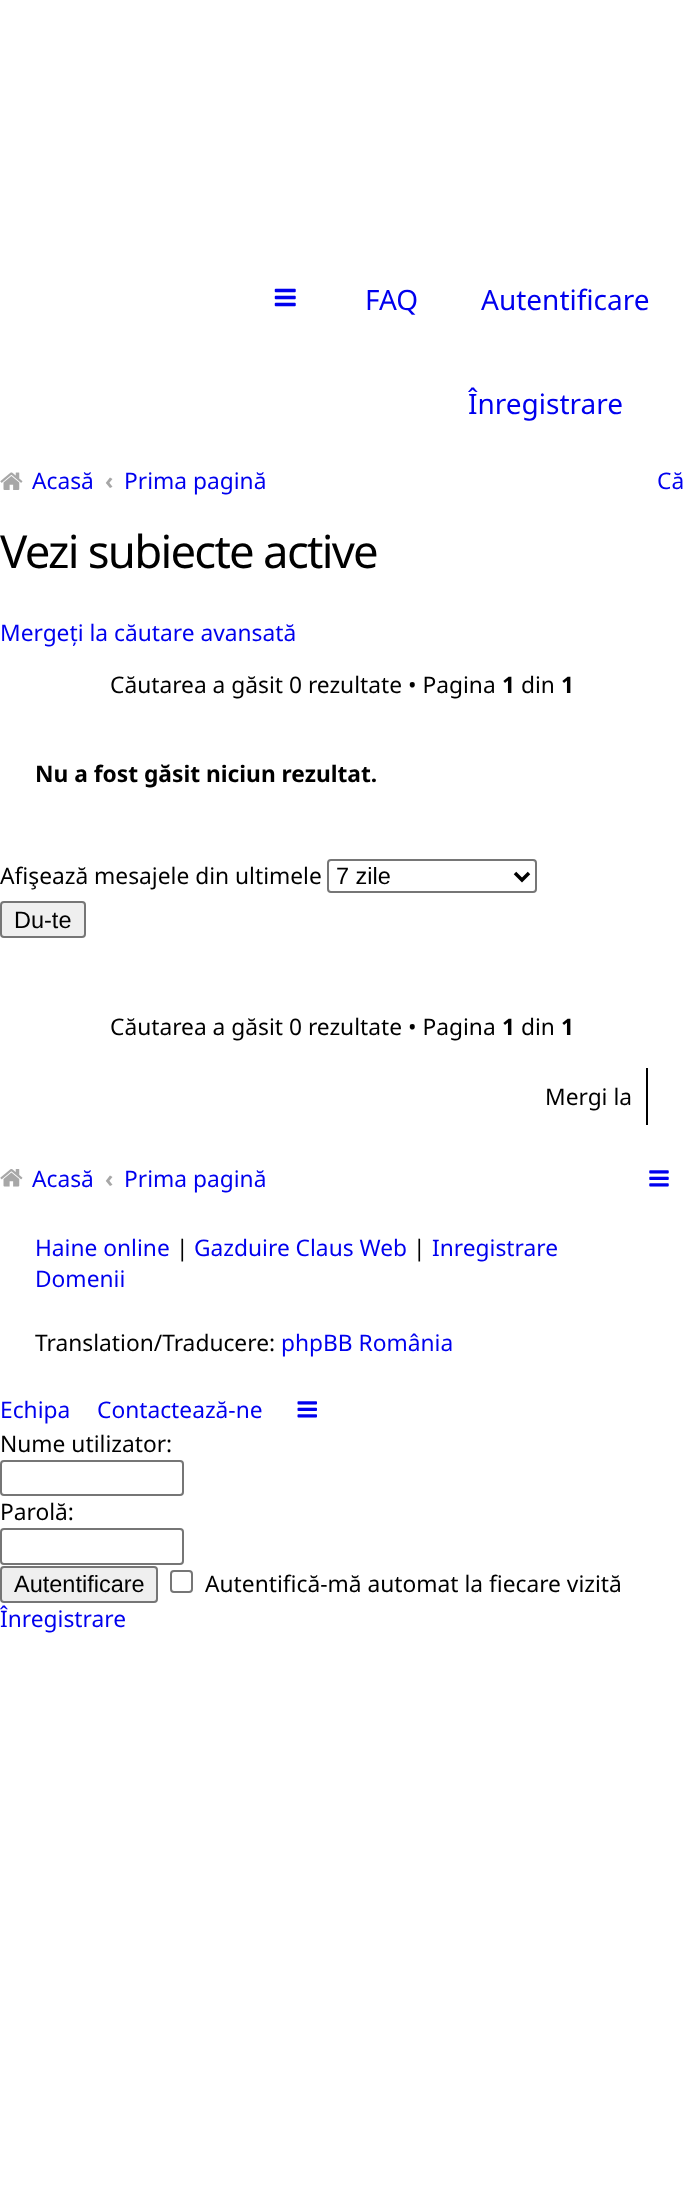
async function draw(canvas) {
  canvas.width = 684;
  canvas.height = 2200;
  const ctx = canvas.getContext('2d');
  ctx.miterLimit = 4;
  ctx.fontKerning = 'normal';
  function label(s, x, y, font, color) {
    ctx.font = font;
    ctx.fillStyle = color;
    ctx.fillText(s, x, y);
  }
  function rect(x, y, w, h, color) {
    ctx.fillStyle = color;
    ctx.fillRect(x, y, w, h);
  }
  async function image(src, x, y, w, h) {
    const img = new Image();
    img.src = src;
    await img.decode();
    ctx.drawImage(img, x, y, w, h);
  }
  let path;

  rect(0, 0, 684, 2200, '#fff');
  await image('assets/img1.png', 274, 288, 22, 19);
  label('FAQ', 365, 310, '28px Noto Sans', '#00e');
  label('Autentificare', 481, 310, '28px Noto Sans', '#00e');
  label('Înregistrare', 468, 414, '28px Noto Sans', '#00e');
  await image('assets/img2.png', 0, 472, 23, 18);
  label('Acasă', 32, 489, '22.75px Noto Sans', '#00e');
  label('‹', 105, 489, 'bold 22.75px Noto Sans', '#a7a7a7');
  label('Prima pagină', 124, 489, '22.75px Noto Sans', '#00e');
  label('Că', 657, 489, '22.75px Noto Sans', '#00e');
  ctx.letterSpacing = '-1.75px';
  label('Vezi subiecte active', 0, 568, '45.5px Noto Sans', '#000');
  ctx.letterSpacing = '0px';
  label('Mergeți la căutare avansată', 0, 641, '22.75px Noto Sans', '#00e');
  label('Căutarea a găsit 0 rezultate • Pagina', 110, 693, '22.75px Noto Sans', '#000');
  label('1', 502, 693, 'bold 22.75px Noto Sans', '#000');
  label('din', 521, 693, '22.75px Noto Sans', '#000');
  label('1', 561, 693, 'bold 22.75px Noto Sans', '#000');
  label('Nu a fost găsit niciun rezultat.', 35, 782, 'bold 22.75px Noto Sans', '#000');
  label('Afişează mesajele din ultimele', 0, 884, '22.75px Noto Sans', '#000');
  ctx.beginPath();
  ctx.roundRect(328, 860, 208, 32, 3);
  ctx.strokeStyle = '#767676';
  ctx.lineWidth = 2;
  ctx.stroke();
  path = new Path2D('M515 873L522 880L529 873');
  ctx.strokeStyle = '#000';
  ctx.lineWidth = 3.5;
  ctx.stroke(path);
  label('7 zile', 336, 884, '23.5px Liberation Sans', '#000');
  ctx.fillStyle = '#efefef';
  ctx.beginPath();
  ctx.roundRect(1, 902, 84, 35, 3);
  ctx.fill();
  ctx.strokeStyle = '#767676';
  ctx.lineWidth = 2;
  ctx.stroke();
  label('Du-te', 14, 928, '23.5px Liberation Sans', '#000');
  label('Căutarea a găsit 0 rezultate • Pagina', 110, 1035, '22.75px Noto Sans', '#000');
  label('1', 502, 1035, 'bold 22.75px Noto Sans', '#000');
  label('din', 521, 1035, '22.75px Noto Sans', '#000');
  label('1', 561, 1035, 'bold 22.75px Noto Sans', '#000');
  label('Mergi la', 545, 1105, '22.75px Noto Sans', '#000');
  rect(646, 1068, 2, 57, '#000');
  await image('assets/img3.png', 0, 1169, 23, 18);
  label('Acasă', 32, 1187, '22.75px Noto Sans', '#00e');
  label('‹', 105, 1187, 'bold 22.75px Noto Sans', '#a7a7a7');
  label('Prima pagină', 124, 1187, '22.75px Noto Sans', '#00e');
  await image('assets/img4.png', 649, 1170, 20, 17);
  label('Haine online', 35, 1256, '22.75px Noto Sans', '#00e');
  label('|', 176, 1256, '22.75px Noto Sans', '#000');
  label('Gazduire Claus Web', 194, 1256, '22.75px Noto Sans', '#00e');
  label('|', 413, 1256, '22.75px Noto Sans', '#000');
  label('Inregistrare', 432, 1256, '22.75px Noto Sans', '#00e');
  label('Domenii', 35, 1287, '22.75px Noto Sans', '#00e');
  label('Translation/Traducere:', 35, 1351, '22.75px Noto Sans', '#000');
  label('phpBB România', 281, 1351, '22.75px Noto Sans', '#00e');
  label('Echipa', 0, 1418, '22.75px Noto Sans', '#00e');
  label('Contactează-ne', 97, 1418, '22.75px Noto Sans', '#00e');
  await image('assets/img5.png', 297, 1401, 20, 17);
  label('Nume utilizator:', 0, 1452, '22.75px Noto Sans', '#000');
  ctx.beginPath();
  ctx.roundRect(1, 1461, 182, 34, 3);
  ctx.stroke();
  label('Parolă:', 0, 1520, '22.75px Noto Sans', '#000');
  ctx.beginPath();
  ctx.roundRect(1, 1529, 182, 35, 3);
  ctx.stroke();
  ctx.fillStyle = '#efefef';
  ctx.beginPath();
  ctx.roundRect(1, 1567, 156, 35, 3);
  ctx.fill();
  ctx.stroke();
  label('Autentificare', 14, 1592, '23.5px Liberation Sans', '#000');
  ctx.beginPath();
  ctx.roundRect(171, 1571, 21, 21, 3);
  ctx.stroke();
  label('Autentifică-mă automat la fiecare vizită', 205, 1592, '22.75px Noto Sans', '#000');
  label('Înregistrare', 0, 1627, '22.75px Noto Sans', '#00e');
}

draw(document.querySelector('canvas'));
